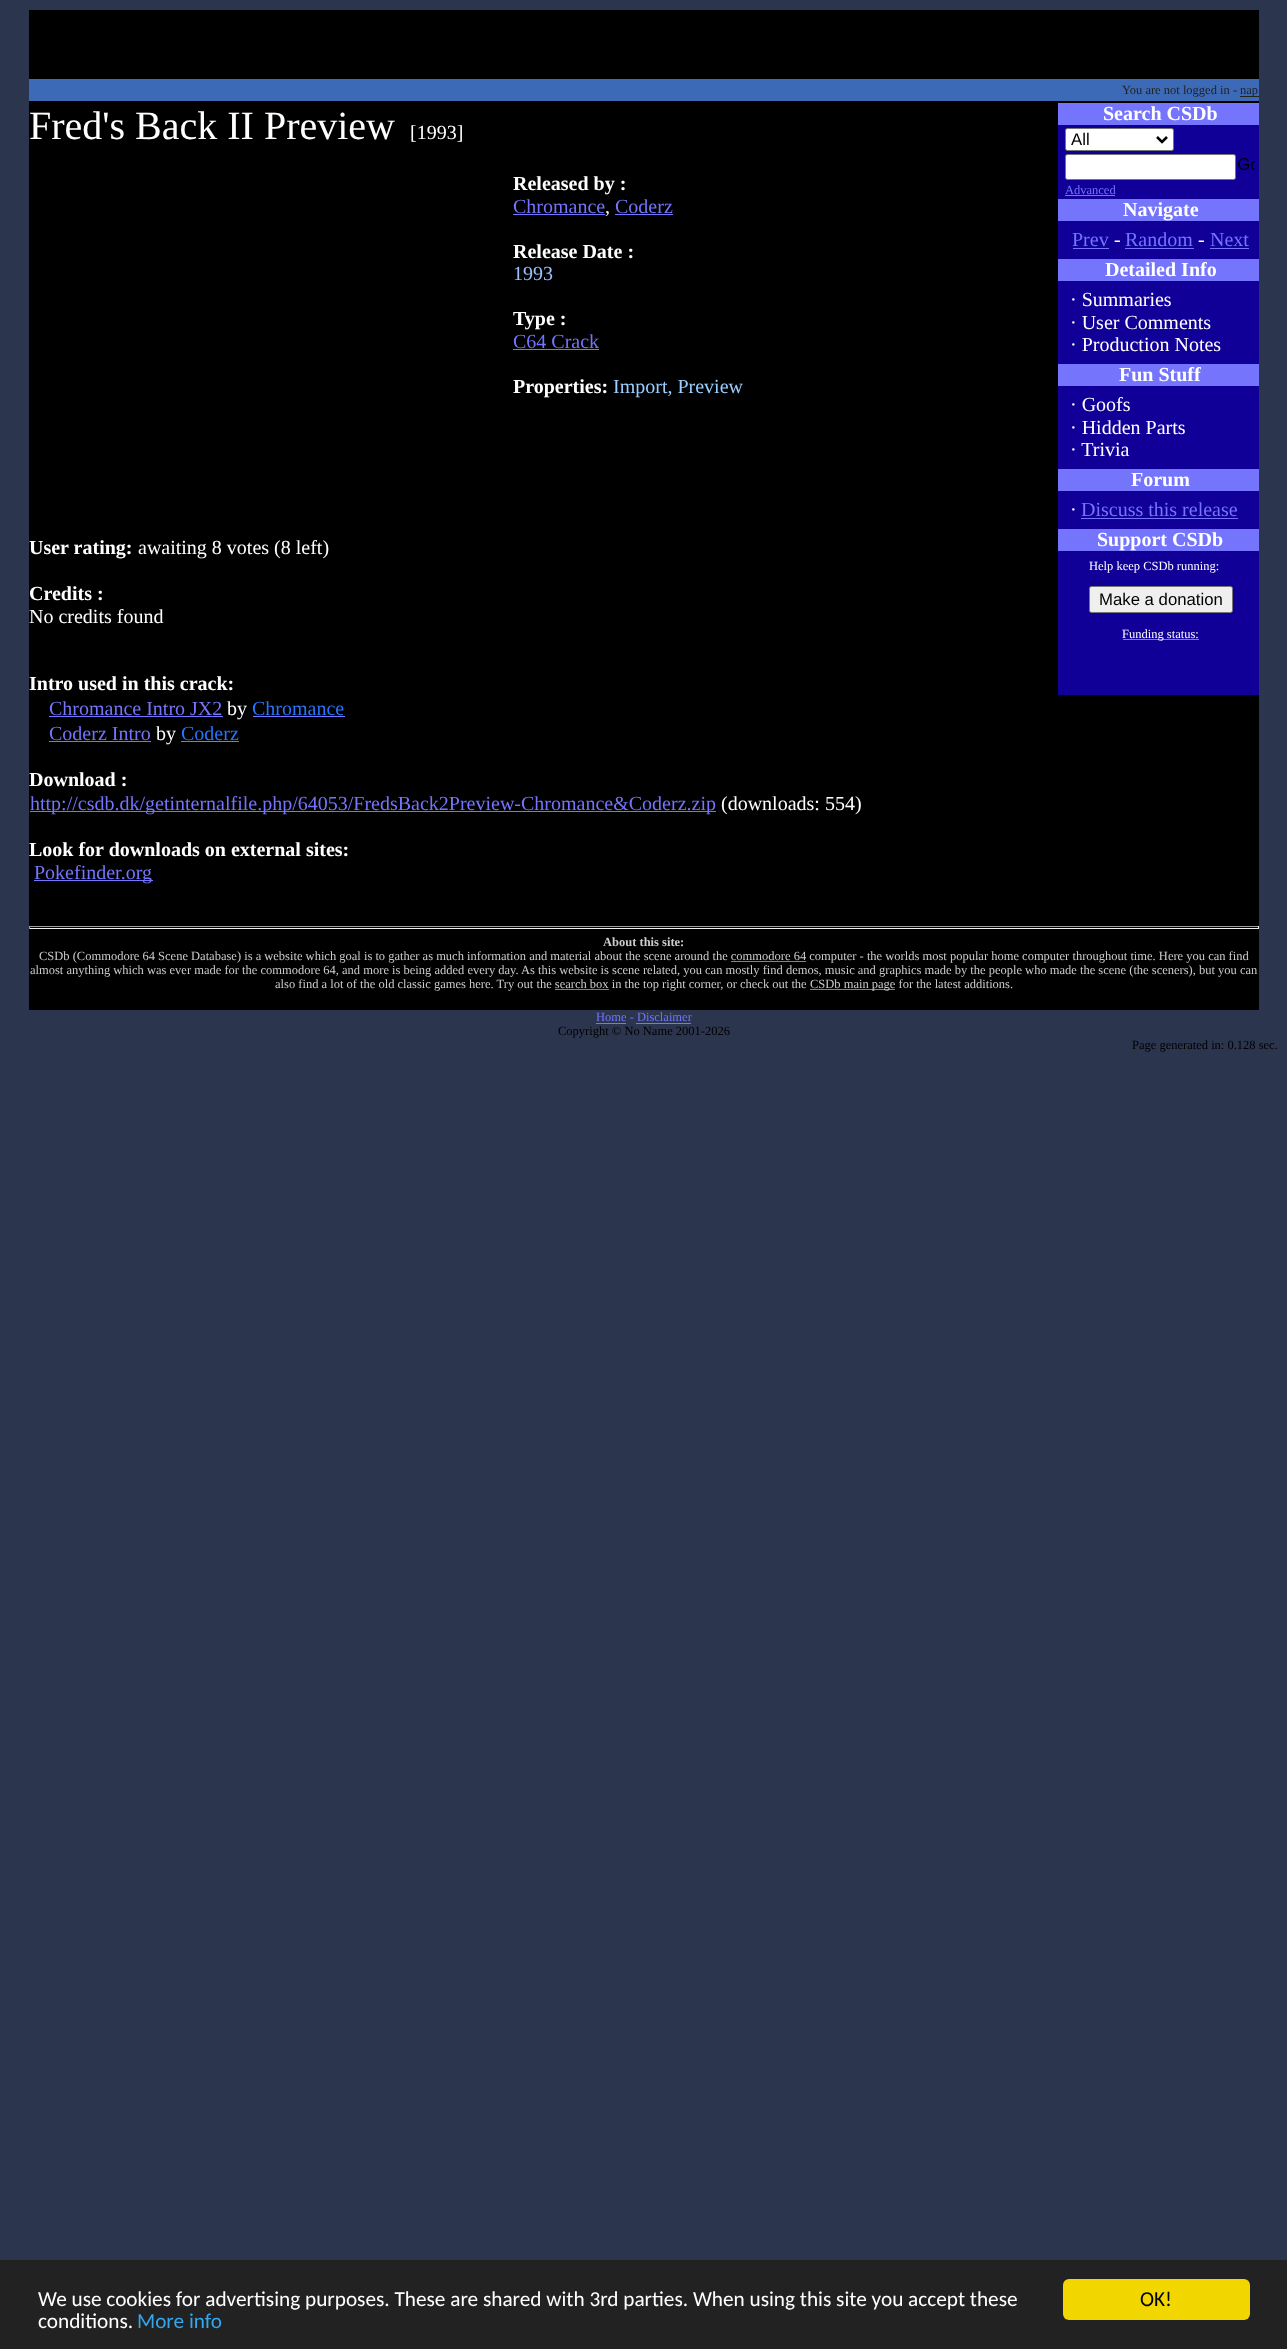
async function draw(canvas) {
  canvas.width = 1287;
  canvas.height = 2349;
  const ctx = canvas.getContext('2d');
  ctx.miterLimit = 4;
  ctx.fontKerning = 'normal';
  function label(s, x, y, font, color) {
    ctx.font = font;
    ctx.fillStyle = color;
    ctx.fillText(s, x, y);
  }
  function rect(x, y, w, h, color) {
    ctx.fillStyle = color;
    ctx.fillRect(x, y, w, h);
  }
  function roundedRect(x, y, w, h, r, color) {
    ctx.fillStyle = color;
    ctx.beginPath();
    ctx.roundRect(x, y, w, h, r);
    ctx.fill();
  }
  async function image(src, x, y, w, h) {
    const img = new Image();
    img.src = src;
    await img.decode();
    ctx.drawImage(img, x, y, w, h);
  }
  let path;

  rect(0, 0, 1287, 2349, '#2b354e');
  rect(29, 10, 1230, 1000, '#000');
  rect(29, 79, 1230, 22, '#3d6ab7');
  label('You are not logged in -', 1122, 94, '12.5px Liberation Serif', '#222');
  rect(1240, 96, 19, 1, '#222');
  label('nap', 1240, 94, '12.5px Liberation Serif', '#222');
  label('Fred\'s Back II Preview', 29, 139, '40px Liberation Serif', '#fff');
  label('[1993]', 410, 139, '20px Liberation Serif', '#fff');
  label('Released by :', 513, 190, 'bold 20px Liberation Serif', '#fff');
  label('Chromance', 513, 213, '20px Liberation Serif', '#7474fc');
  rect(513, 214, 92, 1, '#7474fc');
  label(',', 605, 213, '20px Liberation Serif', '#fff');
  label('Coderz', 615, 213, '20px Liberation Serif', '#7474fc');
  rect(615, 214, 58, 1, '#7474fc');
  label('Release Date :', 513, 258, 'bold 20px Liberation Serif', '#fff');
  label('1993', 513, 280, '20px Liberation Serif', '#99c2ff');
  label('Type :', 513, 325, 'bold 20px Liberation Serif', '#fff');
  label('C64 Crack', 513, 348, '20px Liberation Serif', '#7474fc');
  rect(513, 349, 86, 1, '#7474fc');
  label('Properties:', 513, 393, 'bold 20px Liberation Serif', '#fff');
  label('Import, Preview', 613, 393, '20px Liberation Serif', '#99ceff');
  label('User rating:', 29, 554, 'bold 20px Liberation Serif', '#fff');
  label('awaiting 8 votes (8 left)', 138, 554, '20px Liberation Serif', '#fff');
  label('Credits :', 29, 600, 'bold 20px Liberation Serif', '#fff');
  label('No credits found', 29, 623, '20px Liberation Serif', '#fff');
  label('Intro used in this crack:', 29, 690, 'bold 20px Liberation Serif', '#fff');
  label('Chromance Intro JX2', 49, 715, '20px Liberation Serif', '#7474fc');
  rect(49, 716, 174, 1, '#7474fc');
  label('by', 227, 715, '20px Liberation Serif', '#fff');
  label('Chromance', 252, 715, '20px Liberation Serif', '#2575ff');
  rect(253, 716, 92, 1, '#7474fc');
  label('Coderz Intro', 49, 740, '20px Liberation Serif', '#7474fc');
  rect(49, 741, 102, 1, '#7474fc');
  label('by', 156, 740, '20px Liberation Serif', '#fff');
  label('Coderz', 181, 740, '20px Liberation Serif', '#2575ff');
  rect(181, 741, 58, 1, '#7474fc');
  label('Download :', 29, 786, 'bold 20px Liberation Serif', '#fff');
  rect(30, 811, 686, 1, '#7474fc');
  label('http://csdb.dk/getinternalfile.php/64053/FredsBack2Preview-Chromance&Coderz.zip', 30, 810, '20px Liberation Serif', '#7474fc');
  label('(downloads: 554)', 721, 810, '20px Liberation Serif', '#fff');
  label('Look for downloads on external sites:', 29, 856, 'bold 20px Liberation Serif', '#fff');
  rect(34, 880, 119, 1, '#7474fc');
  label('Pokefinder.org', 34, 879, '20px Liberation Serif', '#7474fc');
  rect(1058, 103, 201, 22, '#7474fc');
  label('Search CSDb', 1103, 120, 'bold 20px Liberation Serif', '#fff');
  rect(1058, 125, 201, 74, '#100098');
  ctx.fillStyle = '#fff';
  ctx.beginPath();
  ctx.roundRect(1065.5, 128.5, 108, 22, 2);
  ctx.fill();
  ctx.strokeStyle = '#767676';
  ctx.stroke();
  path = new Path2D('M1157 137L1162 142L1167 137');
  ctx.strokeStyle = '#000';
  ctx.lineWidth = 2.5;
  ctx.stroke(path);
  label('All', 1071, 145, '16.75px Liberation Sans', '#000');
  ctx.fillStyle = '#fff';
  ctx.beginPath();
  ctx.roundRect(1065.5, 154.5, 170, 25, 2);
  ctx.fill();
  ctx.strokeStyle = '#767676';
  ctx.lineWidth = 1;
  ctx.stroke();
  await image('assets/img1.png', 1238, 158, 17, 12);
  label('Advanced', 1065, 194, '12.5px Liberation Serif', '#7474fc');
  rect(1065, 195, 50, 1, '#7474fc');
  rect(1058, 199, 201, 22, '#7474fc');
  label('Navigate', 1123, 216, 'bold 20px Liberation Serif', '#fff');
  rect(1058, 221, 201, 38, '#100098');
  label('Prev', 1072, 246, '20px Liberation Serif', '#7474fc');
  rect(1073, 248, 36, 1, '#7474fc');
  label('-', 1114, 246, '20px Liberation Serif', '#fff');
  label('Random', 1125, 246, '20px Liberation Serif', '#7474fc');
  rect(1125, 248, 69, 1, '#7474fc');
  label('-', 1198, 246, '20px Liberation Serif', '#fff');
  label('Next', 1210, 246, '20px Liberation Serif', '#7474fc');
  rect(1210, 248, 39, 1, '#7474fc');
  rect(1058, 259, 201, 22, '#7474fc');
  label('Detailed Info', 1105, 276, 'bold 20px Liberation Serif', '#fff');
  rect(1058, 281, 201, 83, '#100098');
  label('· Summaries', 1070, 306, '20px Liberation Serif', '#fff');
  label('· User Comments', 1070, 329, '20px Liberation Serif', '#fff');
  label('· Production Notes', 1070, 351, '20px Liberation Serif', '#fff');
  rect(1058, 364, 201, 22, '#7474fc');
  label('Fun Stuff', 1119, 381, 'bold 20px Liberation Serif', '#fff');
  rect(1058, 386, 201, 83, '#100098');
  label('· Goofs', 1070, 411, '20px Liberation Serif', '#fff');
  label('· Hidden Parts', 1070, 434, '20px Liberation Serif', '#fff');
  label('· Trivia', 1070, 456, '20px Liberation Serif', '#fff');
  rect(1058, 469, 201, 22, '#7474fc');
  label('Forum', 1131, 486, 'bold 20px Liberation Serif', '#fff');
  rect(1058, 491, 201, 38, '#100098');
  label('·', 1070, 516, '20px Liberation Serif', '#fff');
  label('Discuss this release', 1081, 516, '20px Liberation Serif', '#7474fc');
  rect(1081, 518, 157, 1, '#7474fc');
  rect(1058, 529, 201, 22, '#7474fc');
  label('Support CSDb', 1097, 546, 'bold 20px Liberation Serif', '#fff');
  rect(1058, 551, 201, 144, '#100098');
  label('Help keep CSDb running:', 1089, 570, '12.5px Liberation Serif', '#fff');
  ctx.fillStyle = '#efefef';
  ctx.beginPath();
  ctx.roundRect(1089.5, 586.5, 143, 26, 2);
  ctx.fill();
  ctx.stroke();
  label('Make a donation', 1099, 605, '16.75px Liberation Sans', '#000');
  rect(1123, 639, 76, 1, '#7474fc');
  label('Funding status:', 1122, 638, '12.5px Liberation Serif', '#fff');
  rect(29, 926, 1230, 1, '#9f9f9f');
  rect(1258, 926, 1, 3, '#eee');
  rect(29, 928, 1230, 1, '#eee');
  rect(29, 926, 1, 3, '#9f9f9f');
  label('About this site:', 603, 946, 'bold 12.5px Liberation Serif', '#ccc');
  label('CSDb (Commodore 64 Scene Database) is a website which goal is to gather as much information and material about the scene around the commodore 64 computer - the worlds most popular home computer throughout time. Here you can find', 39, 960, '12.5px Liberation Serif', '#ccc');
  rect(731, 961, 75, 1, '#7474fc');
  label('almost anything which was ever made for the commodore 64, and more is being added every day. As this website is scene related, you can mostly find demos, music and graphics made by the people who made the scene (the sceners), but you can', 30, 974, '12.5px Liberation Serif', '#ccc');
  label('also find a lot of the old classic games here. Try out the search box in the top right corner, or check out the', 275, 988, '12.5px Liberation Serif', '#ccc');
  rect(810, 989, 85, 1, '#7474fc');
  label('CSDb main page for the latest additions.', 810, 988, '12.5px Liberation Serif', '#ccc');
  rect(555, 989, 54, 1, '#7474fc');
  label('Home - Disclaimer', 596, 1021, '12.5px Liberation Serif', '#7474fc');
  rect(596, 1023, 30, 1, '#7474fc');
  rect(636, 1023, 55, 1, '#7474fc');
  label('Copyright © No Name 2001-2026', 558, 1035, '12.5px Liberation Serif', '#000');
  label('Page generated in: 0.128 sec.', 1132, 1049, '12.5px Liberation Serif', '#000');
  rect(0, 2260, 1287, 89, '#222');
  label('We use cookies for advertising purposes. These are shared with 3rd parties. When using this site you accept these', 38, 2306, '21.25px Carlito', '#fff');
  label('conditions.', 38, 2328, '21.25px Carlito', '#fff');
  label('More info', 137, 2328, '21.25px Carlito', '#31a8f0');
  roundedRect(1063, 2279, 187, 41, 6, '#f1d600');
  label('OK!', 1140, 2306, '21.25px Carlito', '#000');
}

draw(document.querySelector('canvas'));
